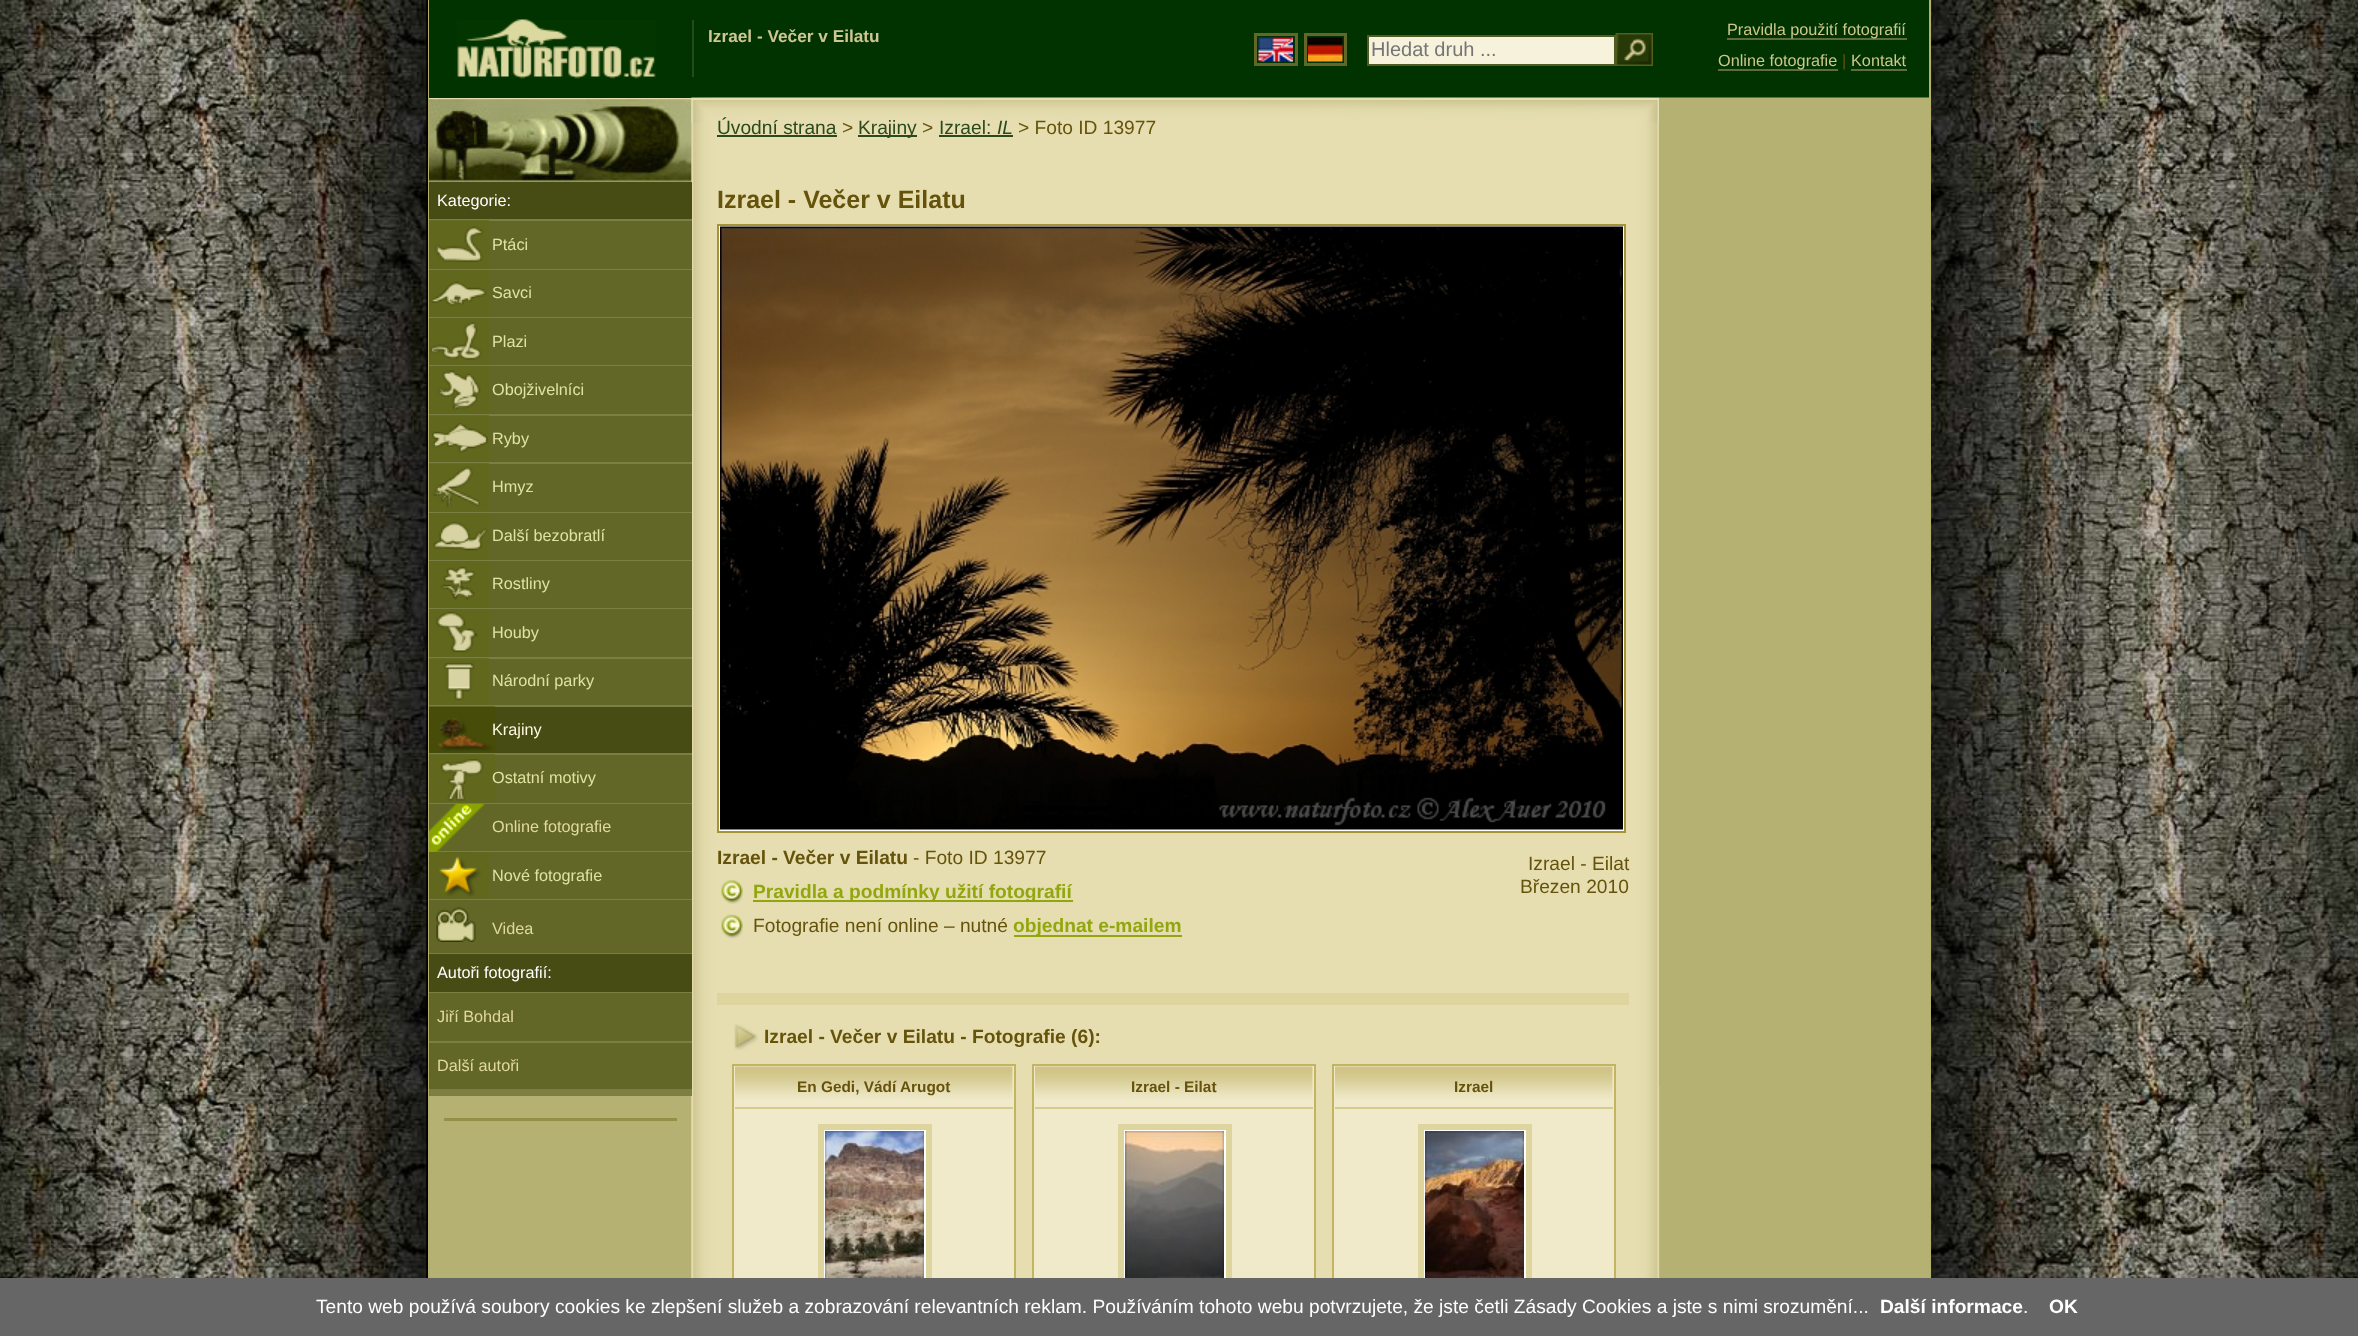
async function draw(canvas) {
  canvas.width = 2358;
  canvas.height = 1336;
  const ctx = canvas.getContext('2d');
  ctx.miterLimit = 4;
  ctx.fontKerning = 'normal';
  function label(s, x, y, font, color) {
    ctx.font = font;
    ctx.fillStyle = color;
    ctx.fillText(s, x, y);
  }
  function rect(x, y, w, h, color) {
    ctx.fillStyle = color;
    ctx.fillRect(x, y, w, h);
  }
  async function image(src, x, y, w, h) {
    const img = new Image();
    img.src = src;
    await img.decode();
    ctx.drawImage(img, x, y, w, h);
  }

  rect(0, 0, 2358, 1336, '#fff');
  await image('assets/img1.png', 0, 0, 2358, 1278);
  await image('assets/img2.png', 430, 100, 262, 1178);
  rect(1929, 0, 2, 1278, '#b5b06c');
  rect(428, 0, 2, 1278, '#b5b06c');
  rect(429, 0, 1500, 98, '#013300');
  rect(429, 98, 263, 2, '#e6deb0');
  await image('assets/img3.png', 691, 97, 1238, 1181);
  rect(1659, 98, 1, 988, '#b5b172');
  rect(1727, 38, 180, 2, '#5f6c3b');
  label('Pravidla použití fotografií', 1727, 35, '16.25px Liberation Sans', '#cdc78b');
  rect(1718, 69, 120, 2, '#5f6c3b');
  label('Online fotografie', 1718, 66, '16.25px Liberation Sans', '#cdc78b');
  label('|', 1842, 66, '16.25px Liberation Sans', '#65530b');
  label('Kontakt', 1851, 66, '16.25px Liberation Sans', '#cdc78b');
  rect(1851, 69, 56, 2, '#5f6c3b');
  rect(429, 954, 263, 38, '#474c14');
  rect(429, 992, 263, 1, '#7b7f44');
  label('Autoři fotografií:', 437, 978, '16.25px Liberation Sans', '#fff');
  rect(429, 1089, 263, 7, '#7b7f44');
  rect(429, 993, 263, 48, '#626727');
  rect(429, 1041, 263, 2, '#7b7f44');
  label('Jiří Bohdal', 437, 1022, '16.25px Liberation Sans', '#e2d9a0');
  rect(429, 1043, 263, 46, '#626727');
  label('Další autoři', 437, 1071, '16.25px Liberation Sans', '#e2d9a0');
  rect(444, 1118, 233, 3, '#959046');
  await image('assets/img13.png', 429, 99, 263, 83);
  await image('assets/img4.png', 691, 99, 968, 24);
  rect(692, 98, 967, 2, '#e3e1b1');
  label('Úvodní strana', 717, 134, '19.2px Liberation Sans', '#2a491d');
  rect(717, 135, 120, 2, '#2a491d');
  label('>', 842, 134, '19.2px Liberation Sans', '#65530b');
  rect(858, 135, 59, 2, '#2a491d');
  label('Krajiny', 858, 134, '19.2px Liberation Sans', '#2a491d');
  label('>', 922, 134, '19.2px Liberation Sans', '#65530b');
  label('Izrael:', 939, 134, '19.2px Liberation Sans', '#2a491d');
  rect(939, 135, 74, 2, '#2a491d');
  label('IL', 997, 134, 'italic 19.2px Liberation Sans', '#2a491d');
  label('> Foto ID 13977', 1018, 134, '19.2px Liberation Sans', '#65530b');
  label('Izrael - Večer v Eilatu', 717, 208, 'bold 25px Liberation Sans', '#65530b');
  ctx.fillStyle = '#fff';
  ctx.beginPath();
  ctx.rect(718, 225, 907, 607);
  ctx.fill();
  ctx.strokeStyle = '#a49437';
  ctx.lineWidth = 2;
  ctx.stroke();
  await image('assets/img5.png', 720, 226, 903, 604);
  label('Izrael - Večer v Eilatu', 717, 864, 'bold 19.2px Liberation Sans', '#65530b');
  label('- Foto ID 13977', 913, 864, '19.2px Liberation Sans', '#65530b');
  await image('assets/img6.png', 721, 880, 22, 24);
  rect(753, 900, 320, 2, '#92a60e');
  label('Pravidla a podmínky užití fotografií', 753, 898, 'bold 19.2px Liberation Sans', '#92a60e');
  await image('assets/img7.png', 721, 914, 22, 25);
  label('Fotografie není online – nutné', 753, 932, '19.2px Liberation Sans', '#65530b');
  rect(1014, 935, 168, 2, '#92a60e');
  label('objednat e-mailem', 1013, 932, 'bold 19.2px Liberation Sans', '#92a60e');
  label('Izrael - Eilat', 1528, 870, '19.2px Liberation Sans', '#65530b');
  label('Březen 2010', 1520, 893, '19.2px Liberation Sans', '#65530b');
  rect(717, 993, 912, 12, '#ded49e');
  await image('assets/img8.png', 734, 1024, 24, 26);
  label('Izrael - Večer v Eilatu - Fotografie (6):', 764, 1043, 'bold 19.2px Liberation Sans', '#65530b');
  rect(734, 1066, 280, 212, '#f0eaca');
  ctx.strokeStyle = '#c2b463';
  ctx.strokeRect(733, 1065, 282, 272);
  await image('assets/img9.png', 735, 1066, 278, 33);
  rect(735, 1107, 278, 2, '#d6cb8f');
  label('En Gedi, Vádí Arugot', 797, 1092, 'bold 15.4px Liberation Sans', '#65530b');
  rect(824, 1130, 102, 148, '#fff');
  ctx.strokeStyle = '#ded49e';
  ctx.lineWidth = 6;
  ctx.strokeRect(821, 1127, 108, 159);
  await image('assets/img10.png', 825, 1131, 99, 147);
  rect(1034, 1066, 280, 212, '#f0eaca');
  ctx.strokeStyle = '#c2b463';
  ctx.lineWidth = 2;
  ctx.strokeRect(1033, 1065, 282, 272);
  await image('assets/img9.png', 1035, 1066, 278, 33);
  rect(1035, 1107, 278, 2, '#d6cb8f');
  label('Izrael - Eilat', 1131, 1092, 'bold 15.4px Liberation Sans', '#65530b');
  rect(1124, 1130, 102, 148, '#fff');
  ctx.strokeStyle = '#ded49e';
  ctx.lineWidth = 6;
  ctx.strokeRect(1121, 1127, 108, 159);
  await image('assets/img11.png', 1125, 1131, 99, 147);
  rect(1334, 1066, 280, 212, '#f0eaca');
  ctx.strokeStyle = '#c2b463';
  ctx.lineWidth = 2;
  ctx.strokeRect(1333, 1065, 282, 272);
  await image('assets/img9.png', 1335, 1066, 278, 33);
  rect(1335, 1107, 278, 2, '#d6cb8f');
  label('Izrael', 1454, 1092, 'bold 15.4px Liberation Sans', '#65530b');
  rect(1424, 1130, 102, 148, '#fff');
  ctx.strokeStyle = '#ded49e';
  ctx.lineWidth = 6;
  ctx.strokeRect(1421, 1127, 108, 159);
  await image('assets/img12.png', 1425, 1131, 99, 147);
  rect(429, 182, 263, 37, '#474c14');
  rect(429, 219, 263, 2, '#7b7f44');
  label('Kategorie:', 437, 206, '16.25px Liberation Sans', '#fff');
  await image('assets/img14.png', 429, 220, 61, 1);
  rect(429, 269, 263, 1, '#7b7f44');
  rect(429, 221, 263, 48, '#626727');
  await image('assets/img15.png', 429, 220, 60, 48);
  label('Ptáci', 492, 250, '16.25px Liberation Sans', '#e0e2a0');
  rect(429, 317, 263, 1, '#7b7f44');
  rect(429, 270, 263, 47, '#626727');
  await image('assets/img16.png', 429, 270, 60, 46);
  label('Savci', 492, 298, '16.25px Liberation Sans', '#e0e2a0');
  rect(429, 365, 263, 1, '#7b7f44');
  rect(429, 318, 263, 47, '#626727');
  await image('assets/img17.png', 429, 318, 60, 46);
  label('Plazi', 492, 347, '16.25px Liberation Sans', '#e0e2a0');
  rect(429, 414, 263, 2, '#7b7f44');
  rect(429, 366, 263, 48, '#626727');
  await image('assets/img18.png', 429, 366, 60, 48);
  label('Obojživelníci', 492, 395, '16.25px Liberation Sans', '#e0e2a0');
  await image('assets/img14.png', 429, 415, 61, 1);
  rect(429, 462, 263, 2, '#7b7f44');
  rect(429, 416, 263, 46, '#626727');
  await image('assets/img19.png', 429, 415, 60, 47);
  label('Ryby', 492, 444, '16.25px Liberation Sans', '#e0e2a0');
  await image('assets/img14.png', 429, 463, 61, 1);
  rect(429, 512, 263, 1, '#7b7f44');
  rect(429, 464, 263, 48, '#626727');
  await image('assets/img20.png', 429, 463, 60, 48);
  label('Hmyz', 492, 492, '16.25px Liberation Sans', '#e0e2a0');
  rect(429, 560, 263, 1, '#7b7f44');
  rect(429, 513, 263, 47, '#626727');
  await image('assets/img21.png', 429, 513, 60, 46);
  label('Další bezobratlí', 492, 541, '16.25px Liberation Sans', '#e0e2a0');
  rect(429, 608, 263, 1, '#7b7f44');
  rect(429, 561, 263, 47, '#626727');
  await image('assets/img22.png', 429, 561, 60, 46);
  label('Rostliny', 492, 589, '16.25px Liberation Sans', '#e0e2a0');
  rect(429, 657, 263, 2, '#7b7f44');
  rect(429, 609, 263, 48, '#626727');
  await image('assets/img23.png', 429, 609, 60, 48);
  label('Houby', 492, 638, '16.25px Liberation Sans', '#e0e2a0');
  await image('assets/img14.png', 429, 658, 61, 1);
  rect(429, 705, 263, 2, '#7b7f44');
  rect(429, 659, 263, 46, '#626727');
  await image('assets/img24.png', 429, 658, 60, 47);
  label('Národní parky', 492, 686, '16.25px Liberation Sans', '#e0e2a0');
  rect(429, 753, 263, 2, '#7b7f44');
  rect(429, 707, 263, 46, '#474c14');
  await image('assets/img25.png', 429, 706, 67, 47);
  label('Krajiny', 492, 735, '16.25px Liberation Sans', '#fef9df');
  await image('assets/img26.png', 429, 754, 67, 1);
  rect(429, 803, 263, 1, '#7b7f44');
  rect(429, 755, 263, 48, '#626727');
  await image('assets/img27.png', 429, 754, 66, 48);
  label('Ostatní motivy', 492, 783, '16.25px Liberation Sans', '#e0e2a0');
  rect(429, 804, 263, 47, '#626727');
  rect(429, 851, 263, 1, '#7b7f44');
  await image('assets/img28.png', 429, 804, 56, 48);
  label('Online fotografie', 492, 832, '16.25px Liberation Sans', '#e2d9a0');
  rect(429, 899, 263, 1, '#7b7f44');
  rect(429, 852, 263, 47, '#626727');
  await image('assets/img29.png', 429, 852, 60, 46);
  label('Nové fotografie', 492, 881, '16.25px Liberation Sans', '#e0e2a0');
  rect(429, 900, 263, 53, '#626727');
  rect(429, 953, 263, 1, '#7b7f44');
  await image('assets/img30.png', 436, 907, 40, 35);
  label('Videa', 492, 934, '16.25px Liberation Sans', '#e2d9a0');
  await image('assets/img31.png', 457, 19, 199, 60);
  rect(692, 20, 2, 57, '#234c18');
  label('Izrael - Večer v Eilatu', 708, 42, 'bold 17.25px Liberation Sans', '#d0c691');
  ctx.strokeStyle = '#626727';
  ctx.lineWidth = 3;
  ctx.strokeRect(1255.5, 34.5, 41, 30);
  ctx.strokeRect(1305.5, 34.5, 40, 30);
  ctx.fillStyle = '#f7f2dc';
  ctx.beginPath();
  ctx.rect(1368, 36, 247, 29);
  ctx.fill();
  ctx.strokeStyle = '#525b22';
  ctx.lineWidth = 2;
  ctx.stroke();
  await image('assets/img32.png', 1615, 33, 38, 33);
  await image('assets/img33.png', 1258, 37, 35, 25);
  await image('assets/img34.png', 1308, 37, 35, 25);
  label('Hledat druh ...', 1371, 56, '20px Liberation Sans', '#757575');
  rect(0, 1278, 2358, 58, '#666');
  label('Tento web používá soubory cookies ke zlepšení služeb a zobrazování relevantních reklam. Používáním tohoto webu potvrzujete, že jste četli Zásady Cookies a jste s nimi srozumění...', 316, 1313, '19.2px Liberation Sans', '#fff');
  label('Další informace', 1880, 1313, 'bold 19.2px Liberation Sans', '#fff');
  label('.', 2023, 1313, '19.2px Liberation Sans', '#fff');
  label('OK', 2049, 1313, 'bold 19.2px Liberation Sans', '#fff');
}

draw(document.querySelector('canvas'));
